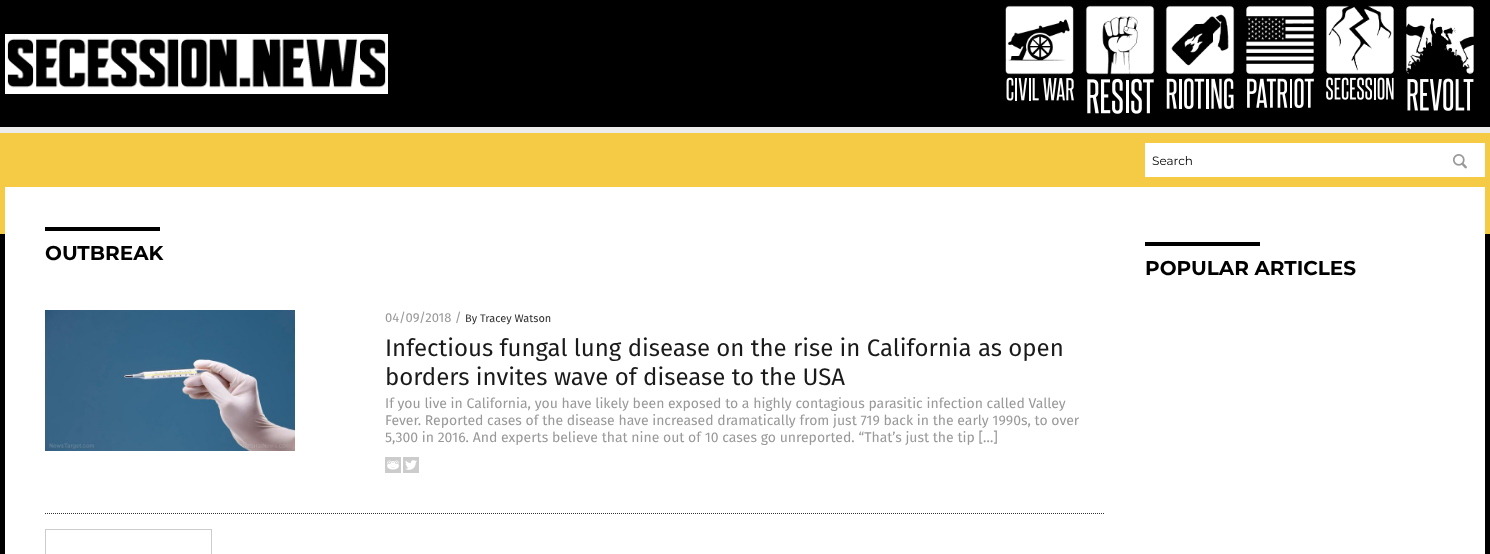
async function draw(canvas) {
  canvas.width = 1490;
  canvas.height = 554;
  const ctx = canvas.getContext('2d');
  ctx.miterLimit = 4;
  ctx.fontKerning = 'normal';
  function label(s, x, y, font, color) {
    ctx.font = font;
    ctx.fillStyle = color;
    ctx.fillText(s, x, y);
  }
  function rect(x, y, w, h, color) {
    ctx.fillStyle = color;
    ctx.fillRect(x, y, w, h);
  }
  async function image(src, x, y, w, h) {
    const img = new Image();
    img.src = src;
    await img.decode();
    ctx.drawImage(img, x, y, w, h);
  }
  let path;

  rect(0, 0, 1490, 554, '#000');
  rect(0, 133, 1490, 101, '#f5ca45');
  await image('assets/img1.png', 5, 34, 383, 60);
  await image('assets/img2.png', 1005, 5, 69, 70);
  await image('assets/img3.png', 1006, 77, 68, 24);
  await image('assets/img4.png', 1085, 5, 70, 70);
  await image('assets/img5.png', 1087, 78, 67, 36);
  await image('assets/img6.png', 1165, 5, 70, 70);
  await image('assets/img7.png', 1166, 78, 68, 31);
  await image('assets/img8.png', 1246, 5, 68, 70);
  await image('assets/img9.png', 1247, 78, 67, 30);
  await image('assets/img10.png', 1326, 5, 68, 70);
  await image('assets/img11.png', 1326, 77, 68, 23);
  await image('assets/img12.png', 1406, 5, 68, 70);
  await image('assets/img13.png', 1407, 78, 67, 33);
  rect(0, 127, 1490, 6, '#ececec');
  rect(1145, 143, 340, 34, '#fff');
  label('Search', 1152, 165, '12px Montserrat', '#000');
  await image('assets/img14.png', 1453, 154, 14, 15);
  rect(5, 187, 1480, 367, '#fff');
  rect(45, 227, 115, 4, '#000');
  label('OUTBREAK', 45, 260, 'bold 20px Montserrat', '#000');
  path = new Path2D('M45 513.5H1105');
  ctx.strokeStyle = '#343434';
  ctx.setLineDash([1, 1]);
  ctx.stroke(path);
  await image('assets/img15.png', 45, 310, 250, 141);
  label('04/09/2018 /', 385, 322, '13px Fira Sans', '#999');
  label('By Tracey Watson', 465, 322, '11px Fira Sans', '#333');
  label('Infectious fungal lung disease on the rise in California as open', 385, 356, '24px Fira Sans', '#1a1a1a');
  label('borders invites wave of disease to the USA', 385, 385, '24px Fira Sans', '#1a1a1a');
  label('If you live in California, you have likely been exposed to a highly contagious parasitic infection called Valley', 385, 408, '14px Fira Sans', '#999');
  label('Fever. Reported cases of the disease have increased dramatically from just 719 back in the early 1990s, to over', 385, 425, '14px Fira Sans', '#999');
  label('5,300 in 2016. And experts believe that nine out of 10 cases go unreported. “That’s just the tip […]', 385, 442, '14px Fira Sans', '#999');
  await image('assets/img16.png', 385, 457, 16, 16);
  await image('assets/img17.png', 403, 457, 16, 16);
  ctx.strokeStyle = '#ccc';
  ctx.setLineDash([]);
  ctx.strokeRect(45.5, 529.5, 166, 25);
  rect(1145, 242, 115, 4, '#000');
  label('POPULAR ARTICLES', 1145, 275, 'bold 20px Montserrat', '#000');
}

draw(document.querySelector('canvas'));
